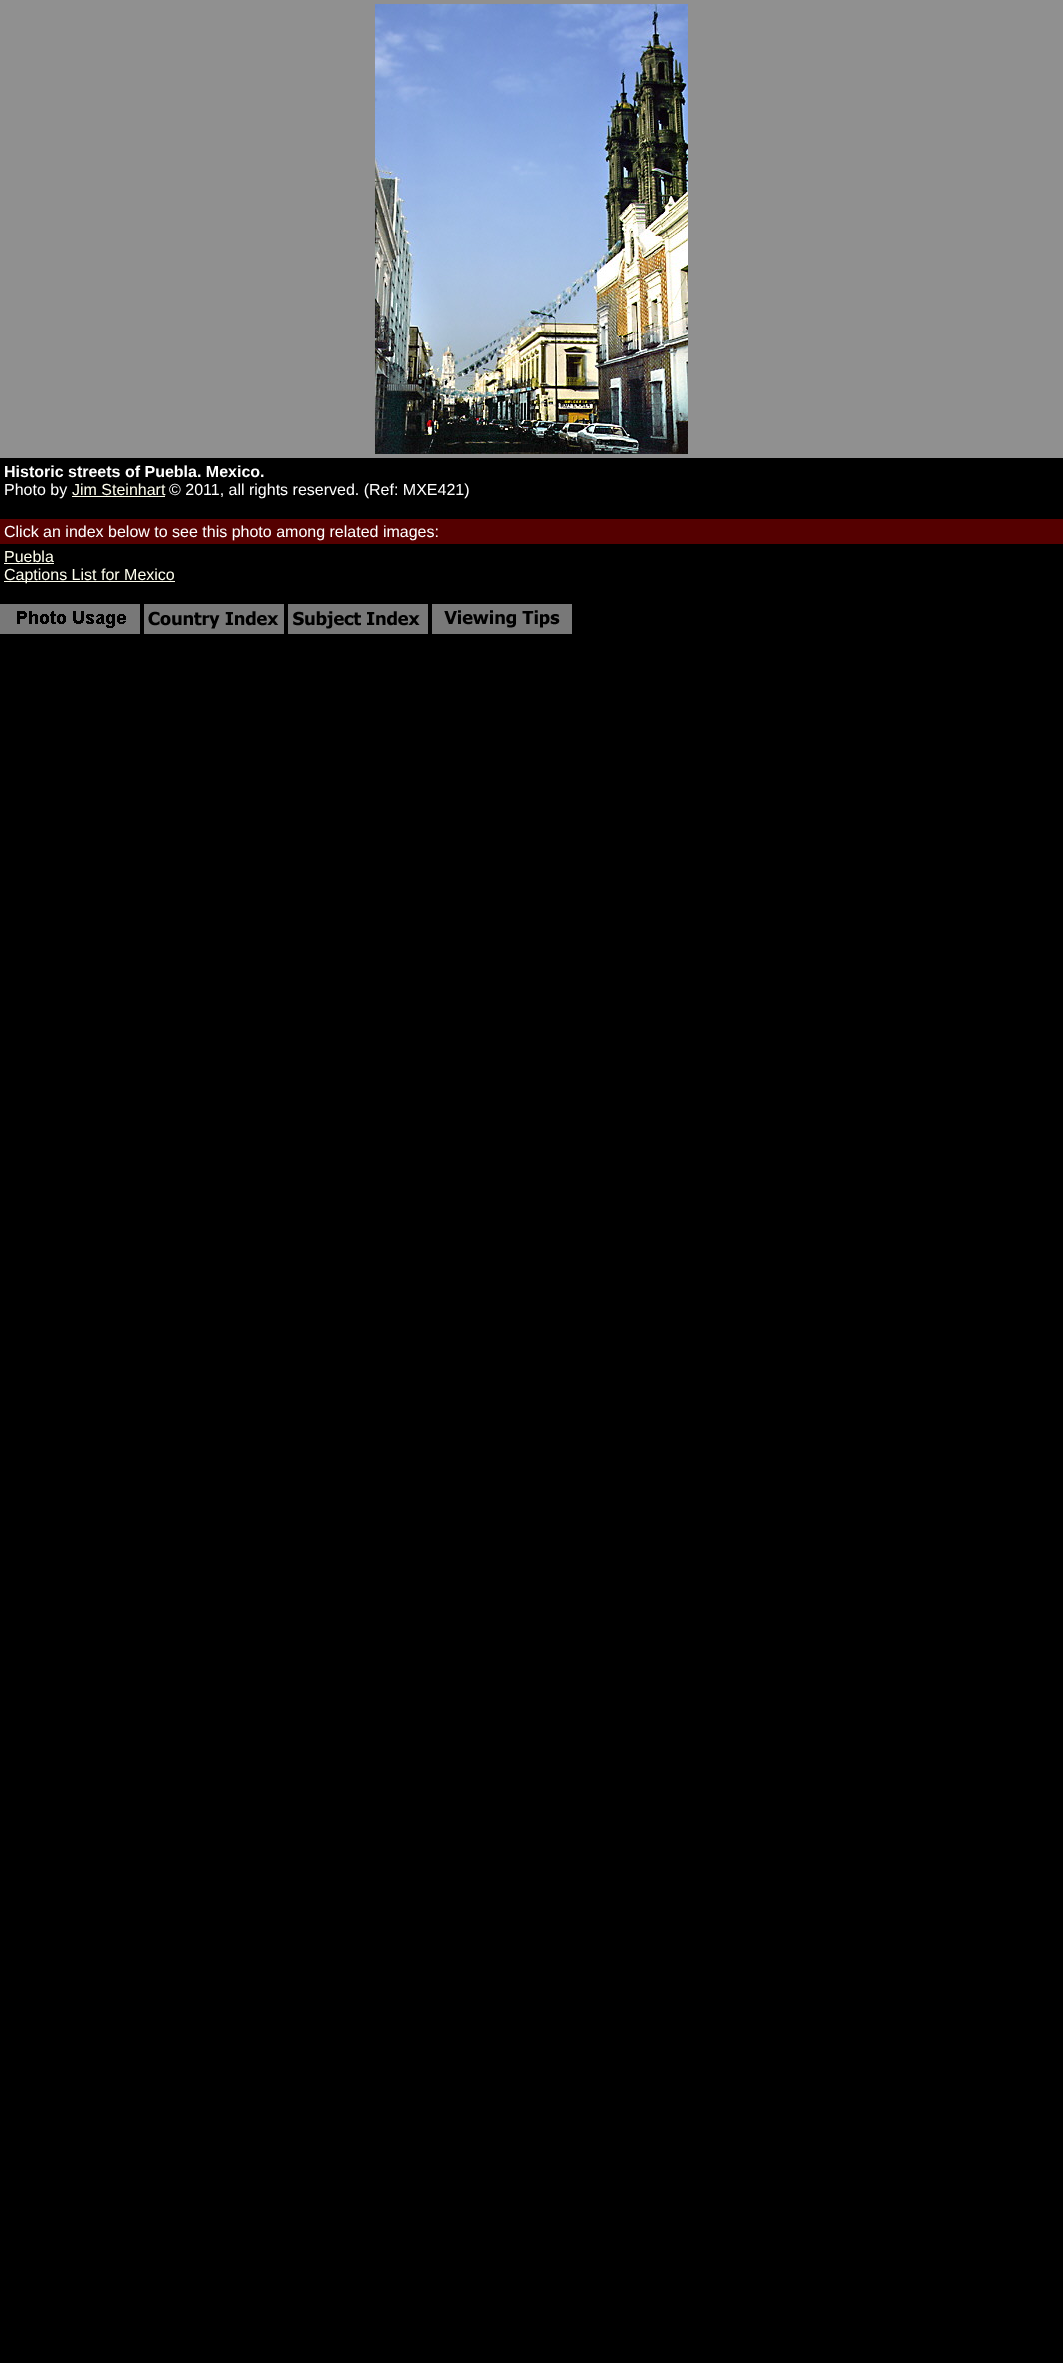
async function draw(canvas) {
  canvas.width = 1063;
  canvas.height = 2363;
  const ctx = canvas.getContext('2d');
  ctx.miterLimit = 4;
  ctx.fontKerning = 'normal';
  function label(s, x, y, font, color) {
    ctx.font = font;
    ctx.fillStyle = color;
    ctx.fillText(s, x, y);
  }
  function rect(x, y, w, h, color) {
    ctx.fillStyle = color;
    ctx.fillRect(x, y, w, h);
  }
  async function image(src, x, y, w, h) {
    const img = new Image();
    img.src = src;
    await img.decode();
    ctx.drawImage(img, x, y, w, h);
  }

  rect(0, 0, 1063, 2363, '#000');
  rect(0, 0, 1063, 458, '#909090');
  await image('assets/img1.png', 375, 4, 313, 450);
  label('Historic streets of Puebla. Mexico.', 4, 477, 'bold 16px Liberation Sans', '#fff');
  label('Photo by', 4, 495, '16px Liberation Sans', '#fff');
  label('Jim Steinhart', 72, 495, '16px Liberation Sans', '#ffe');
  rect(72, 496, 93, 1, '#ffe');
  label('© 2011, all rights reserved. (Ref: MXE421)', 169, 495, '16px Liberation Sans', '#fff');
  rect(0, 519, 1063, 25, '#500');
  label('Click an index below to see this photo among related images:', 4, 537, '16px Liberation Sans', '#fff');
  label('Puebla', 4, 562, '16px Liberation Sans', '#ffe');
  rect(4, 563, 50, 1, '#ffe');
  rect(4, 581, 171, 1, '#ffe');
  label('Captions List for Mexico', 4, 580, '16px Liberation Sans', '#ffe');
  await image('assets/img2.png', 0, 604, 140, 30);
  await image('assets/img3.png', 144, 604, 140, 30);
  await image('assets/img4.png', 288, 604, 140, 30);
  await image('assets/img5.png', 432, 604, 140, 30);
}

draw(document.querySelector('canvas'));
